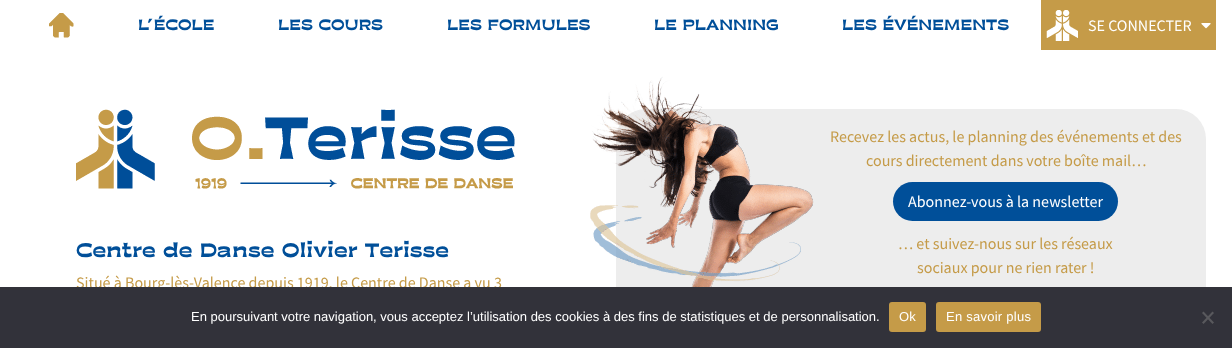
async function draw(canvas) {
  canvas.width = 1232;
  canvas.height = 348;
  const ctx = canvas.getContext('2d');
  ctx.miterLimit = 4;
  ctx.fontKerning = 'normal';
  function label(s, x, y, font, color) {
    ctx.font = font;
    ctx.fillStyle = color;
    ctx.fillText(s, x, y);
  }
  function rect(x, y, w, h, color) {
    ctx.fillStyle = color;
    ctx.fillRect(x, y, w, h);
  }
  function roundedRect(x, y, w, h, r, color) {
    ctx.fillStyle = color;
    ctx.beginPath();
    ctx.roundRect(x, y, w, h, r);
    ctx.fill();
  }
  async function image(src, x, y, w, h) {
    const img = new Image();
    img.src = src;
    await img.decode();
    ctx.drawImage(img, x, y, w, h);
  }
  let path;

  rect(0, 0, 1232, 348, '#fff');
  await image('assets/img1.png', 49, 13, 25, 25);
  label('L’ÉCOLE', 138, 30, 'bold 16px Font', '#004f99');
  label('LES COURS', 278, 30, 'bold 16px Font', '#004f99');
  label('LES FORMULES', 447, 30, 'bold 16px Font', '#004f99');
  label('LE PLANNING', 654, 30, 'bold 16px Font', '#004f99');
  label('LES ÉVÉNEMENTS', 842, 30, 'bold 16px Font', '#004f99');
  rect(1041, 0, 175, 50, '#c59b48');
  await image('assets/img2.png', 1046, 10, 32, 31);
  label('SE CONNECTER', 1088, 31, '16px Source Sans Pro', '#fff');
  await image('assets/img3.png', 1201, 23, 10, 6);
  await image('assets/img4.png', 76, 109, 439, 80);
  label('Centre de Danse Olivier Terisse', 76, 257, 'bold 21px Font', '#004f99');
  label('Situé à Bourg-lès-Valence depuis 1919, le Centre de Danse a vu 3', 76, 288, '16px Source Sans Pro', '#c59b48');
  roundedRect(616, 109, 590, 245, 30, '#ededed');
  await image('assets/img5.png', 590, 76, 224, 211);
  label('Recevez les actus, le planning des événements et des', 830, 142, '16px Source Sans Pro', '#c59b48');
  label('cours directement dans votre boîte mail…', 866, 166, '16px Source Sans Pro', '#c59b48');
  roundedRect(893, 182, 225, 39, 19.5, '#004f99');
  label('Abonnez-vous à la newsletter', 908, 207, '16px Source Sans Pro', '#fff');
  label('… et suivez-nous sur les réseaux', 898, 249, '16px Source Sans Pro', '#c59b48');
  label('sociaux pour ne rien rater !', 917, 273, '16px Source Sans Pro', '#c59b48');
  rect(0, 287, 1232, 61, '#32323a');
  label('En poursuivant votre navigation, vous acceptez l’utilisation des cookies à des fins de statistiques et de personnalisation.', 191, 321, '13px Liberation Sans', '#fff');
  roundedRect(889, 302, 37, 30, 3, '#c59b48');
  ctx.letterSpacing = '0.25px';
  label('Ok', 899, 321, '13px Liberation Sans', '#fff');
  roundedRect(936, 302, 105, 30, 3, '#c59b48');
  label('En savoir plus', 946, 321, '13px Liberation Sans', '#fff');
  ctx.fillStyle = '#59595d';
  path = new Path2D('M1212.5 311.5L1214 313L1203.5 324L1202 322.5Z');
  ctx.fill(path);
  path = new Path2D('M1202 313L1203.5 311.5L1214 322.5L1212.5 324Z');
  ctx.fill(path);
}

draw(document.querySelector('canvas'));
